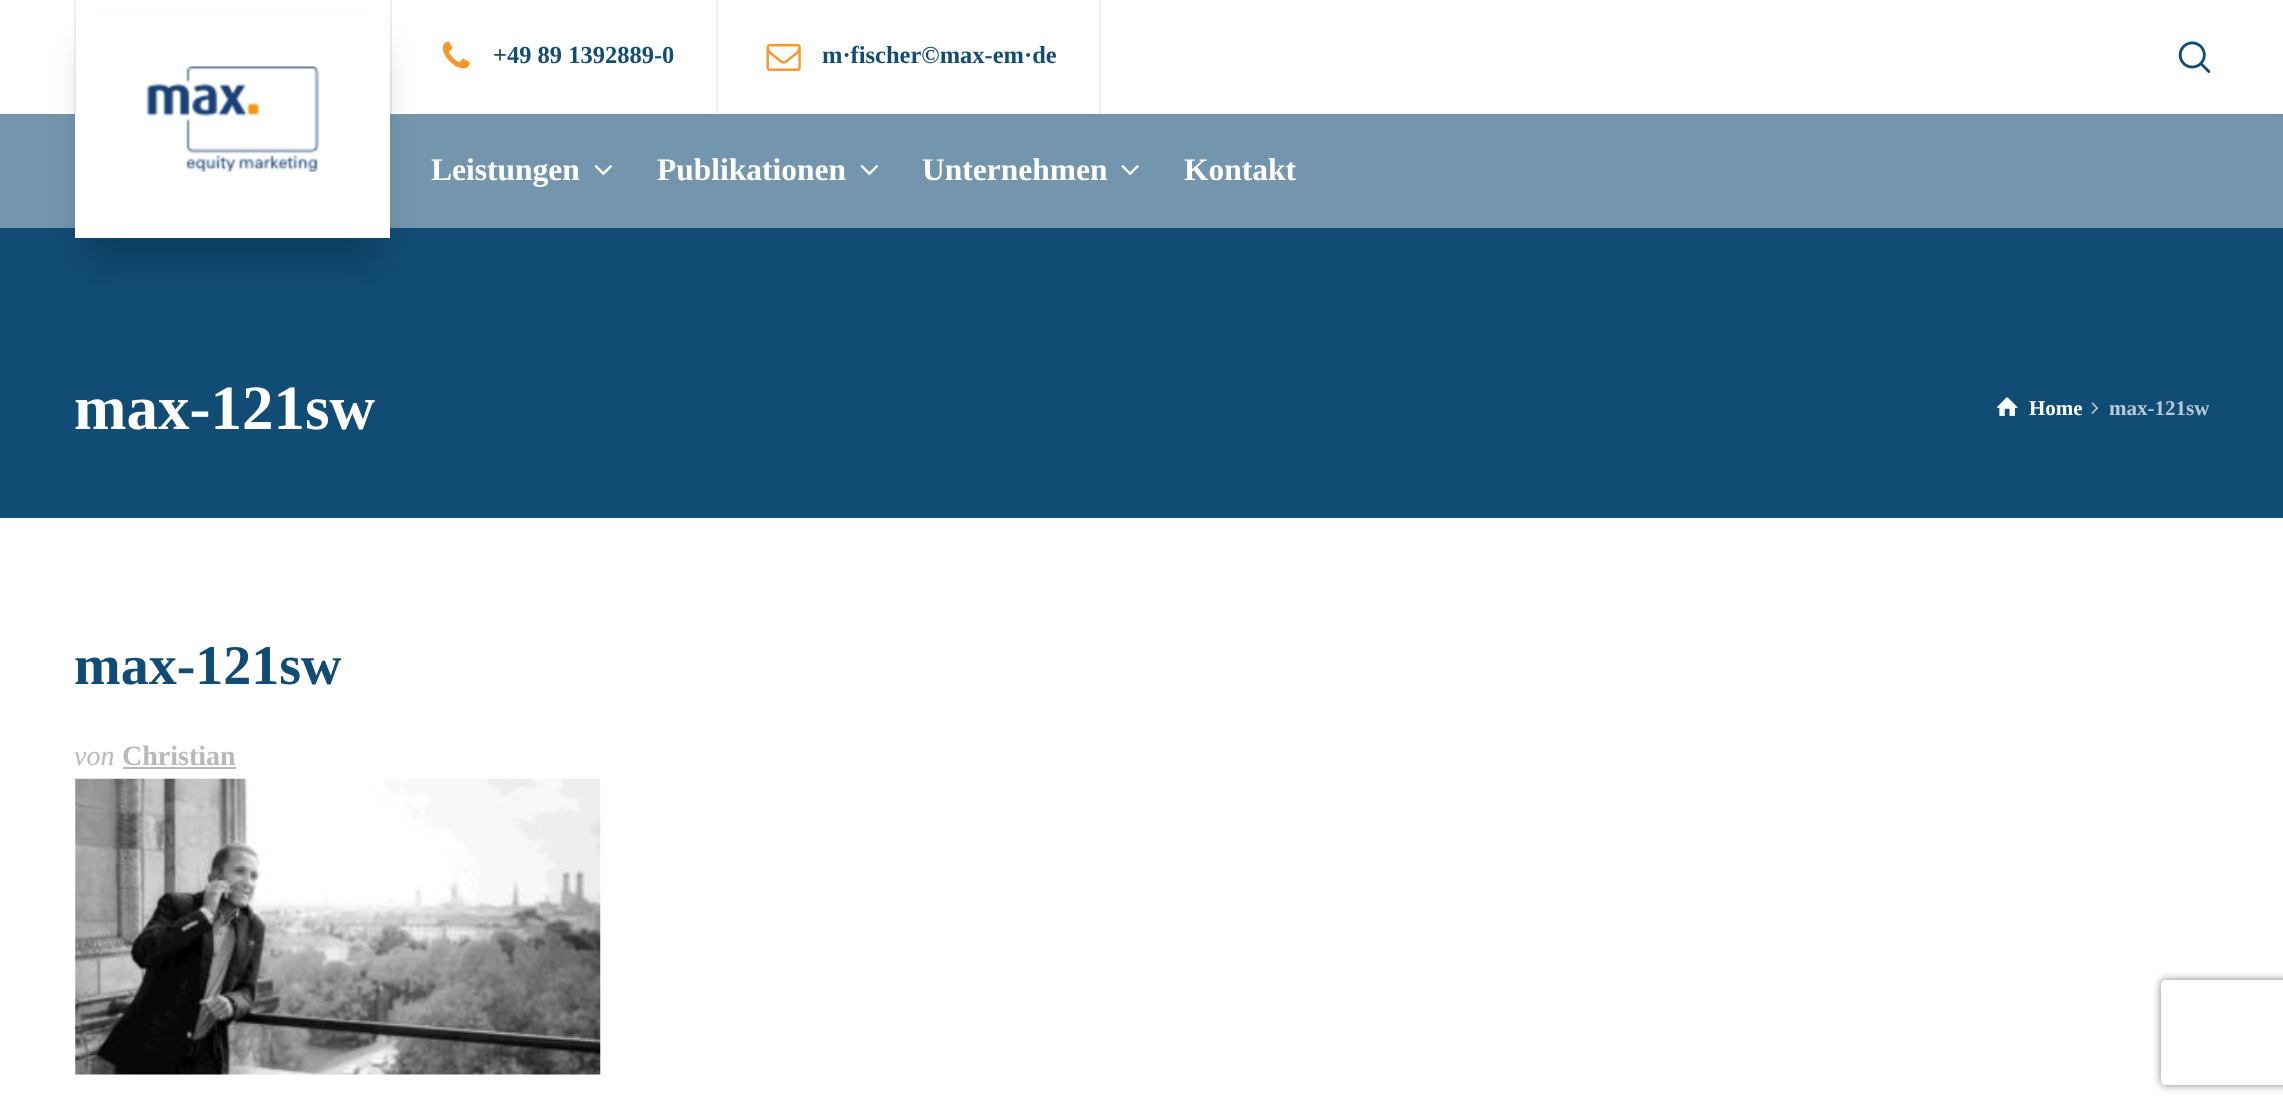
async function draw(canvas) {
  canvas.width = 2283;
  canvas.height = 1109;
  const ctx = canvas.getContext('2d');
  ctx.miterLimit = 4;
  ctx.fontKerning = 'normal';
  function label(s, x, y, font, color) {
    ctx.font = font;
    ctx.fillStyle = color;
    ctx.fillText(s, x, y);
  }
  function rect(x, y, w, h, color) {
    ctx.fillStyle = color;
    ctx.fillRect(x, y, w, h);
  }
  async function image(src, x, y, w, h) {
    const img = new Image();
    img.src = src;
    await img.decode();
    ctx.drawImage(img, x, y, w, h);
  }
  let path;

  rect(0, 0, 2283, 1109, '#fff');
  rect(0, 114, 2283, 114, '#7396ae');
  rect(0, 228, 2283, 290, '#114c75');
  ctx.fillStyle = '#0000002b';
  ctx.filter = 'blur(16.5px)';
  ctx.beginPath();
  ctx.rect(84, 44, 298, 220);
  ctx.fill();
  ctx.filter = 'none';
  rect(75, 18, 315, 220, '#fff');
  rect(74, 0, 2, 114, '#00000012');
  await image('assets/img1.png', 146, 66, 174, 106);
  rect(390, 0, 2, 114, '#00000012');
  rect(716, 0, 2, 114, '#ededed');
  await image('assets/img2.png', 442, 41, 28, 28);
  label('+49 89 1392889-0', 493, 63, 'bold 24.5px Liberation Serif', '#114c75');
  rect(1099, 0, 2, 114, '#ededed');
  await image('assets/img3.png', 766, 44, 35, 27);
  label('m·fischer©max-em·de', 822, 63, 'bold 24.5px Liberation Serif', '#114c75');
  await image('assets/img4.png', 2178, 41, 33, 32);
  label('Leistungen', 431, 180, 'bold 31.5px Liberation Serif', '#fff');
  await image('assets/img5.png', 594, 165, 19, 11);
  label('Publikationen', 657, 180, 'bold 31.5px Liberation Serif', '#fff');
  await image('assets/img5.png', 860, 165, 19, 11);
  label('Unternehmen', 922, 180, 'bold 31.5px Liberation Serif', '#fff');
  await image('assets/img6.png', 1121, 165, 18, 11);
  label('Kontakt', 1184, 180, 'bold 31.5px Liberation Serif', '#fff');
  label('max-121sw', 74, 429, 'bold 63px Liberation Serif', '#fff');
  await image('assets/img7.png', 1996, 397, 22, 19);
  label('Home', 2029, 415, 'bold 21px Liberation Serif', '#fff');
  await image('assets/img8.png', 2091, 402, 8, 12);
  label('max-121sw', 2109, 415, 'bold 21px Liberation Serif', '#b8c9d6');
  label('max-121sw', 74, 684, 'bold 56px Liberation Serif', '#114c75');
  label('von', 74, 765, 'italic 28px Liberation Serif', '#b9b9b9');
  label('Christian', 122, 765, 'bold 28px Liberation Serif', '#b9b9b9');
  rect(123, 767, 113, 2, '#b9b9b9');
  await image('assets/img9.png', 75, 778, 526, 297);
  ctx.save();
  path = new Path2D('M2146 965H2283V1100H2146ZM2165 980H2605C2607 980 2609 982 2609 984V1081C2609 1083 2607 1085 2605 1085H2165C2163 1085 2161 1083 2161 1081V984C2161 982 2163 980 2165 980Z');
  ctx.clip(path, 'evenodd');
  ctx.fillStyle = '#808080';
  ctx.filter = 'blur(4.5px)';
  ctx.beginPath();
  ctx.roundRect(2161, 980, 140, 105, 4);
  ctx.fill();
  ctx.filter = 'none';
  ctx.restore();
}

draw(document.querySelector('canvas'));
